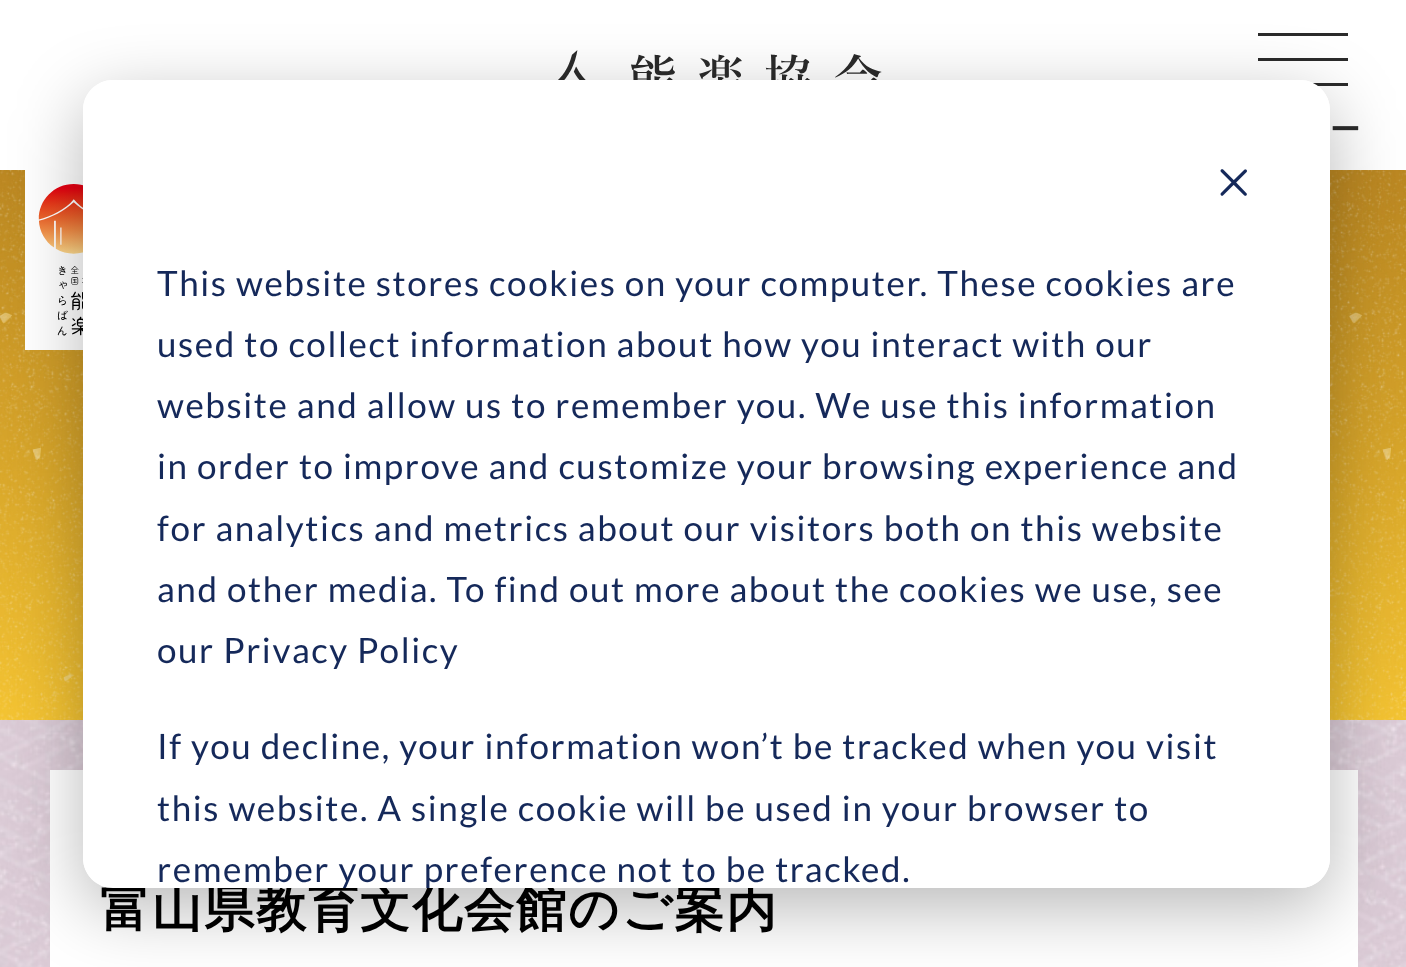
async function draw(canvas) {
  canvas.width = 1406;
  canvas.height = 967;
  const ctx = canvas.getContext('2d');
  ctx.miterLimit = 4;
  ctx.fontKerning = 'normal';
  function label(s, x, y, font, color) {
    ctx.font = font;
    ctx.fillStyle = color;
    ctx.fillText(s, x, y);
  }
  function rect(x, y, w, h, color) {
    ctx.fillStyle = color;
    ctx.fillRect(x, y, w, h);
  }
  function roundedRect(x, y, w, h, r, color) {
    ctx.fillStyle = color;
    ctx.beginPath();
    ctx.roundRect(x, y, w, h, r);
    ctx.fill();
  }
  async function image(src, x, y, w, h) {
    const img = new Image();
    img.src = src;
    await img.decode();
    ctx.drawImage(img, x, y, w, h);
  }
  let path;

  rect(0, 0, 1406, 967, '#fff');
  await image('assets/img1.png', 558, 50, 324, 30);
  rect(1258, 58, 90, 3, '#2b2b2b');
  rect(1258, 33, 90, 3, '#2b2b2b');
  rect(1313, 83, 35, 3, '#2b2b2b');
  ctx.letterSpacing = '-3px';
  label('ー', 1330, 140, 'bold 30px WenQuanYi Zen Hei', '#2b2b2b');
  await image('assets/img3.png', 0, 720, 1406, 247);
  await image('assets/img4.png', 0, 170, 1406, 550);
  rect(25, 170, 58, 180, '#fff');
  await image('assets/img5.png', 38, 184, 45, 152);
  rect(50, 770, 1308, 197, '#fff');
  ctx.save();
  path = new Path2D('M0 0H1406V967H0ZM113 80H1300C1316.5 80 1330 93.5 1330 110V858C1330 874.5 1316.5 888 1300 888H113C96.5 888 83 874.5 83 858V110C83 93.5 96.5 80 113 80Z');
  ctx.clip(path, 'evenodd');
  ctx.fillStyle = '#00000047';
  ctx.filter = 'blur(35px)';
  ctx.beginPath();
  ctx.roundRect(83, 100, 1247, 808, 30);
  ctx.fill();
  ctx.filter = 'none';
  ctx.restore();
  ctx.letterSpacing = '2px';
  label('富山県教育文化会館のご案内', 100, 926, 'bold 50px WenQuanYi Zen Hei', '#000');
  roundedRect(83, 80, 1247, 808, 30, '#fff');
  await image('assets/img2.png', 1220, 169, 27, 27);
  ctx.letterSpacing = '1.6px';
  label('This website stores cookies on your computer. These cookies are', 157, 296, '35px Lato', '#15295a');
  label('used to collect information about how you interact with our', 157, 357, '35px Lato', '#15295a');
  label('website and allow us to remember you. We use this information', 157, 418, '35px Lato', '#15295a');
  label('in order to improve and customize your browsing experience and', 157, 479, '35px Lato', '#15295a');
  label('for analytics and metrics about our visitors both on this website', 157, 541, '35px Lato', '#15295a');
  label('and other media. To find out more about the cookies we use, see', 157, 602, '35px Lato', '#15295a');
  label('our Privacy Policy', 157, 663, '35px Lato', '#15295a');
  label('If you decline, your information won’t be tracked when you visit', 157, 759, '35px Lato', '#15295a');
  label('this website. A single cookie will be used in your browser to', 157, 821, '35px Lato', '#15295a');
  label('remember your preference not to be tracked.', 157, 882, '35px Lato', '#15295a');
}

draw(document.querySelector('canvas'));
